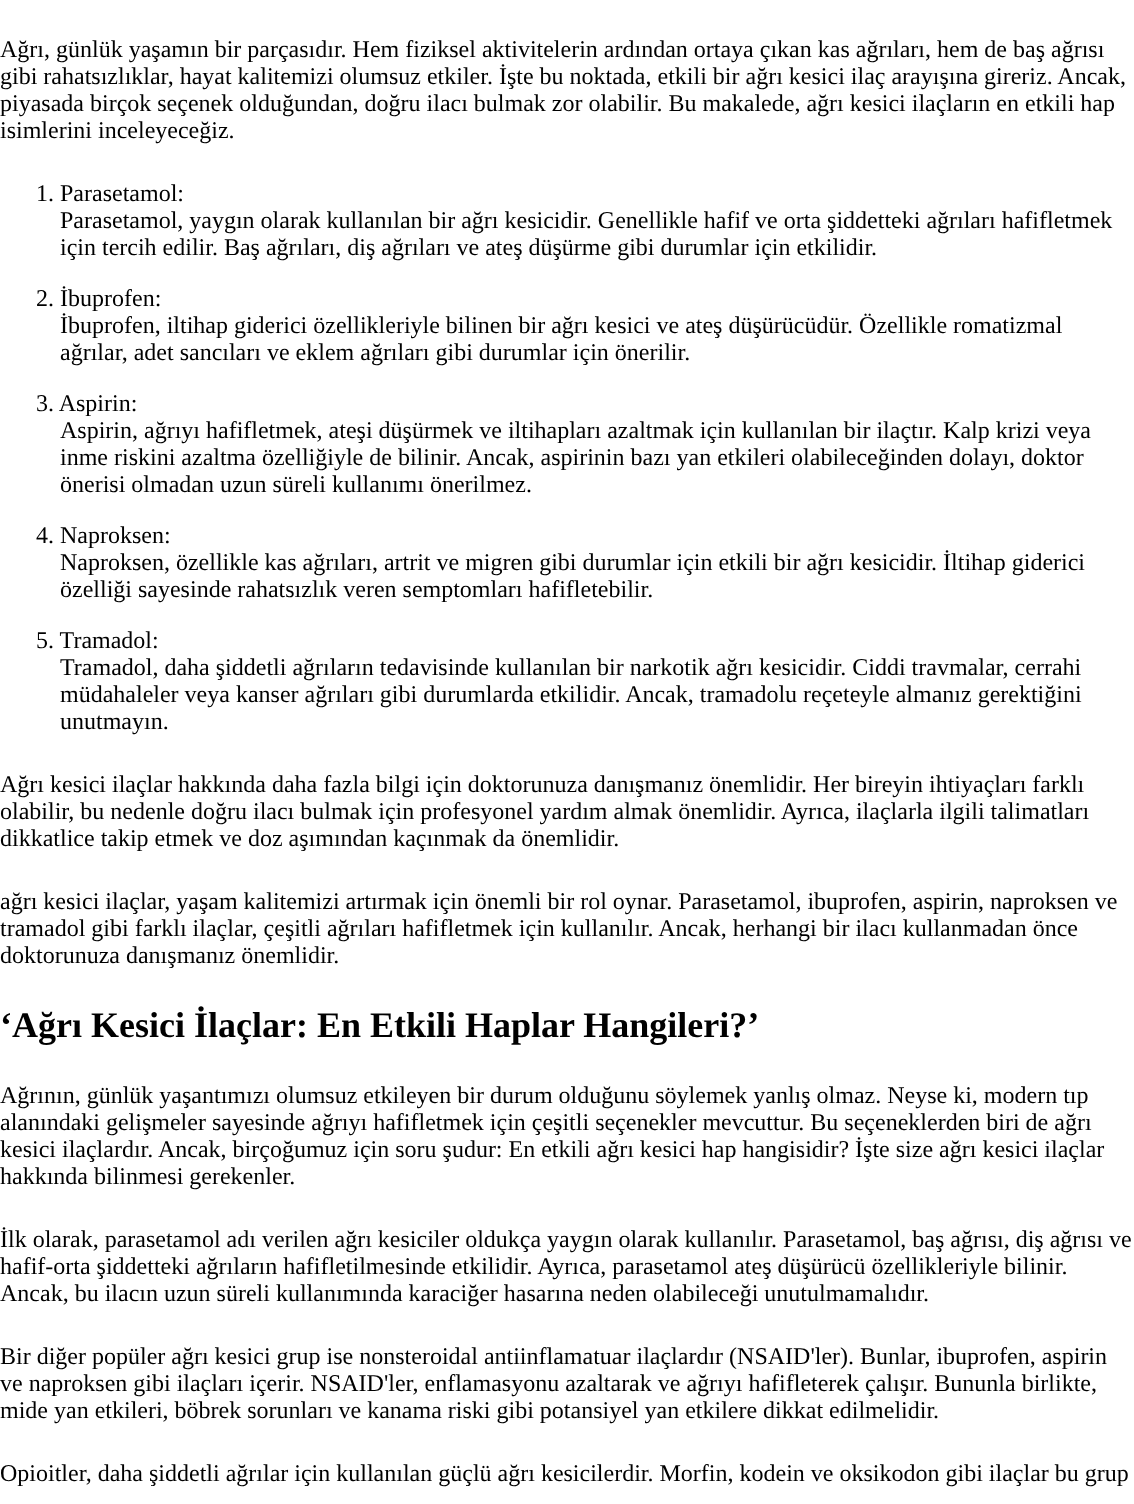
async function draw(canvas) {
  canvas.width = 1134;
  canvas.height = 1504;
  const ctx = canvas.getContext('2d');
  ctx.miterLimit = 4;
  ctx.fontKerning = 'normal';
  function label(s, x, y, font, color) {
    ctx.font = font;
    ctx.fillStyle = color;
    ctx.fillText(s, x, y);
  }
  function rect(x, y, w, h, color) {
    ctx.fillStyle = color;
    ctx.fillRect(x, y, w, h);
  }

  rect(0, 0, 1134, 1504, '#fff');
  label('Ağrı, günlük yaşamın bir parçasıdır. Hem fiziksel aktivitelerin ardından ortaya çıkan kas ağrıları, hem de baş ağrısı', 0, 57, '24px Liberation Serif', '#000');
  label('gibi rahatsızlıklar, hayat kalitemizi olumsuz etkiler. İşte bu noktada, etkili bir ağrı kesici ilaç arayışına gireriz. Ancak,', 0, 84, '24px Liberation Serif', '#000');
  label('piyasada birçok seçenek olduğundan, doğru ilacı bulmak zor olabilir. Bu makalede, ağrı kesici ilaçların en etkili hap', 0, 111, '24px Liberation Serif', '#000');
  label('isimlerini inceleyeceğiz.', 0, 138, '24px Liberation Serif', '#000');
  label('1. Parasetamol:', 36, 201, '24px Liberation Serif', '#000');
  label('Parasetamol, yaygın olarak kullanılan bir ağrı kesicidir. Genellikle hafif ve orta şiddetteki ağrıları hafifletmek', 60, 228, '24px Liberation Serif', '#000');
  label('için tercih edilir. Baş ağrıları, diş ağrıları ve ateş düşürme gibi durumlar için etkilidir.', 60, 255, '24px Liberation Serif', '#000');
  label('2. İbuprofen:', 36, 306, '24px Liberation Serif', '#000');
  label('İbuprofen, iltihap giderici özellikleriyle bilinen bir ağrı kesici ve ateş düşürücüdür. Özellikle romatizmal', 60, 333, '24px Liberation Serif', '#000');
  label('ağrılar, adet sancıları ve eklem ağrıları gibi durumlar için önerilir.', 60, 360, '24px Liberation Serif', '#000');
  label('3. Aspirin:', 36, 411, '24px Liberation Serif', '#000');
  label('Aspirin, ağrıyı hafifletmek, ateşi düşürmek ve iltihapları azaltmak için kullanılan bir ilaçtır. Kalp krizi veya', 60, 438, '24px Liberation Serif', '#000');
  label('inme riskini azaltma özelliğiyle de bilinir. Ancak, aspirinin bazı yan etkileri olabileceğinden dolayı, doktor', 60, 465, '24px Liberation Serif', '#000');
  label('önerisi olmadan uzun süreli kullanımı önerilmez.', 60, 492, '24px Liberation Serif', '#000');
  label('4. Naproksen:', 36, 543, '24px Liberation Serif', '#000');
  label('Naproksen, özellikle kas ağrıları, artrit ve migren gibi durumlar için etkili bir ağrı kesicidir. İltihap giderici', 60, 570, '24px Liberation Serif', '#000');
  label('özelliği sayesinde rahatsızlık veren semptomları hafifletebilir.', 60, 597, '24px Liberation Serif', '#000');
  label('5. Tramadol:', 36, 648, '24px Liberation Serif', '#000');
  label('Tramadol, daha şiddetli ağrıların tedavisinde kullanılan bir narkotik ağrı kesicidir. Ciddi travmalar, cerrahi', 60, 675, '24px Liberation Serif', '#000');
  label('müdahaleler veya kanser ağrıları gibi durumlarda etkilidir. Ancak, tramadolu reçeteyle almanız gerektiğini', 60, 702, '24px Liberation Serif', '#000');
  label('unutmayın.', 60, 729, '24px Liberation Serif', '#000');
  label('Ağrı kesici ilaçlar hakkında daha fazla bilgi için doktorunuza danışmanız önemlidir. Her bireyin ihtiyaçları farklı', 0, 792, '24px Liberation Serif', '#000');
  label('olabilir, bu nedenle doğru ilacı bulmak için profesyonel yardım almak önemlidir. Ayrıca, ilaçlarla ilgili talimatları', 0, 819, '24px Liberation Serif', '#000');
  label('dikkatlice takip etmek ve doz aşımından kaçınmak da önemlidir.', 0, 846, '24px Liberation Serif', '#000');
  label('ağrı kesici ilaçlar, yaşam kalitemizi artırmak için önemli bir rol oynar. Parasetamol, ibuprofen, aspirin, naproksen ve', 0, 909, '24px Liberation Serif', '#000');
  label('tramadol gibi farklı ilaçlar, çeşitli ağrıları hafifletmek için kullanılır. Ancak, herhangi bir ilacı kullanmadan önce', 0, 936, '24px Liberation Serif', '#000');
  label('doktorunuza danışmanız önemlidir.', 0, 963, '24px Liberation Serif', '#000');
  label('‘Ağrı Kesici İlaçlar: En Etkili Haplar Hangileri?’', 0, 1037, 'bold 36px Liberation Serif', '#000');
  label('Ağrının, günlük yaşantımızı olumsuz etkileyen bir durum olduğunu söylemek yanlış olmaz. Neyse ki, modern tıp', 0, 1103, '24px Liberation Serif', '#000');
  label('alanındaki gelişmeler sayesinde ağrıyı hafifletmek için çeşitli seçenekler mevcuttur. Bu seçeneklerden biri de ağrı', 0, 1130, '24px Liberation Serif', '#000');
  label('kesici ilaçlardır. Ancak, birçoğumuz için soru şudur: En etkili ağrı kesici hap hangisidir? İşte size ağrı kesici ilaçlar', 0, 1157, '24px Liberation Serif', '#000');
  label('hakkında bilinmesi gerekenler.', 0, 1184, '24px Liberation Serif', '#000');
  label('İlk olarak, parasetamol adı verilen ağrı kesiciler oldukça yaygın olarak kullanılır. Parasetamol, baş ağrısı, diş ağrısı ve', 0, 1247, '24px Liberation Serif', '#000');
  label('hafif-orta şiddetteki ağrıların hafifletilmesinde etkilidir. Ayrıca, parasetamol ateş düşürücü özellikleriyle bilinir.', 0, 1274, '24px Liberation Serif', '#000');
  label('Ancak, bu ilacın uzun süreli kullanımında karaciğer hasarına neden olabileceği unutulmamalıdır.', 0, 1301, '24px Liberation Serif', '#000');
  label('Bir diğer popüler ağrı kesici grup ise nonsteroidal antiinflamatuar ilaçlardır (NSAID\'ler). Bunlar, ibuprofen, aspirin', 0, 1364, '24px Liberation Serif', '#000');
  label('ve naproksen gibi ilaçları içerir. NSAID\'ler, enflamasyonu azaltarak ve ağrıyı hafifleterek çalışır. Bununla birlikte,', 0, 1391, '24px Liberation Serif', '#000');
  label('mide yan etkileri, böbrek sorunları ve kanama riski gibi potansiyel yan etkilere dikkat edilmelidir.', 0, 1418, '24px Liberation Serif', '#000');
  label('Opioitler, daha şiddetli ağrılar için kullanılan güçlü ağrı kesicilerdir. Morfin, kodein ve oksikodon gibi ilaçlar bu grup', 0, 1481, '24px Liberation Serif', '#000');
}

draw(document.querySelector('canvas'));
